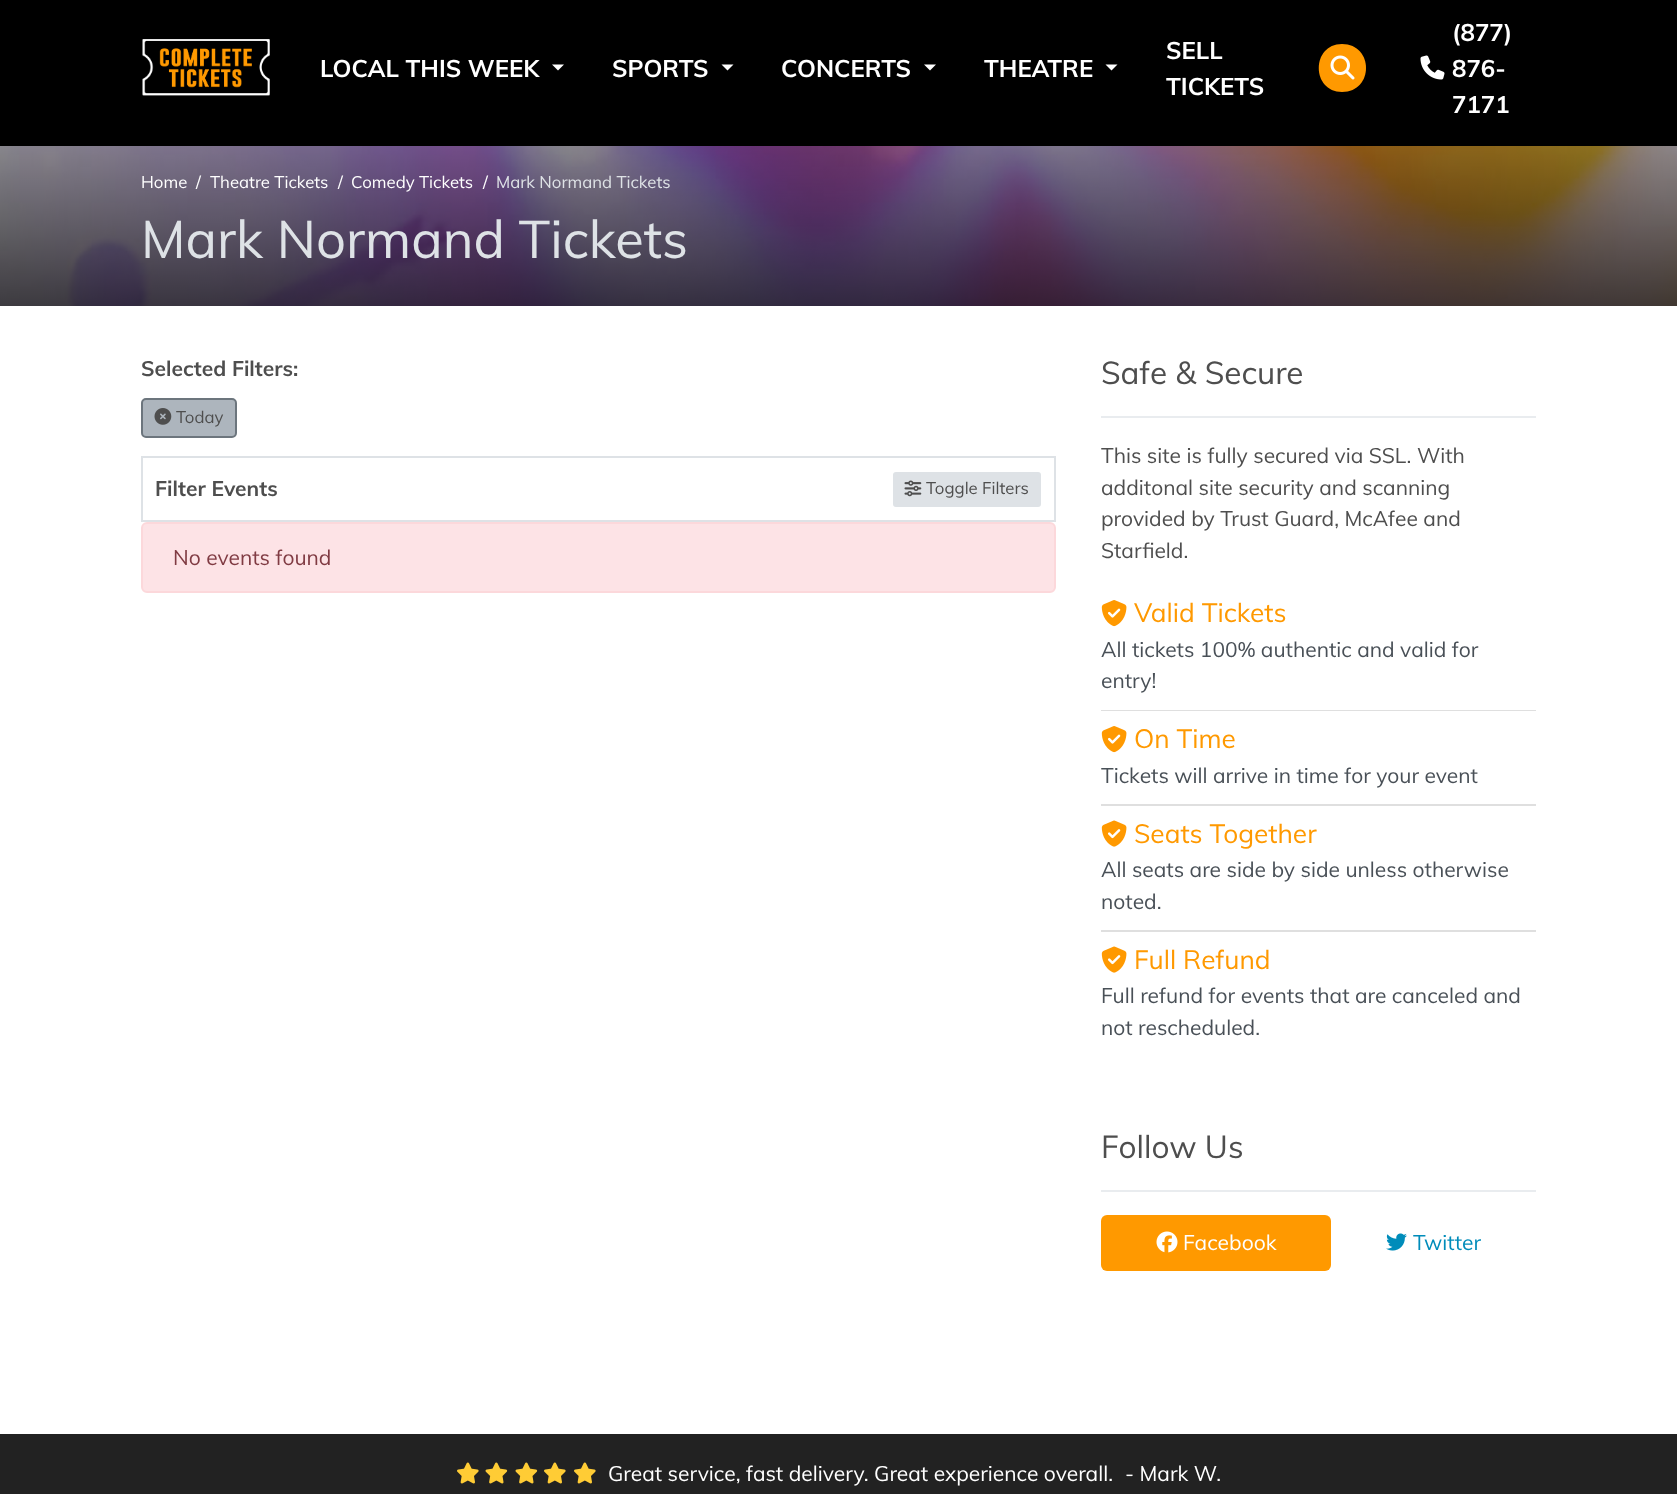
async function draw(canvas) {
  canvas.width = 1677;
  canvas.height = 1494;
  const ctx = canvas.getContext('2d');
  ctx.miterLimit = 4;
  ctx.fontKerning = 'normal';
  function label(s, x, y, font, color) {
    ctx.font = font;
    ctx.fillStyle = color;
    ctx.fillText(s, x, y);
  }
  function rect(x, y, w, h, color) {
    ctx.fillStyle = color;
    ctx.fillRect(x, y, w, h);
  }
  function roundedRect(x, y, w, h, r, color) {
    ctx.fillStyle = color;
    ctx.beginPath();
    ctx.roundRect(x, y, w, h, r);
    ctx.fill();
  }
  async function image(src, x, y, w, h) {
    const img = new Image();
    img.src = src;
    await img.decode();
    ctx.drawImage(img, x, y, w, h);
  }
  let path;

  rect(0, 0, 1677, 1494, '#fff');
  rect(0, 0, 1677, 146, '#000');
  await image('assets/img1.png', 142, 39, 128, 57);
  label('LOCAL THIS WEEK', 320, 77, 'bold 24px Muli', '#fff');
  path = new Path2D('M552 64.5H564L558 70.5Z');
  ctx.fill(path);
  label('SPORTS', 612, 77, 'bold 24px Muli', '#fff');
  path = new Path2D('M721.5 64.5H733.5L727.5 70.5Z');
  ctx.fill(path);
  label('CONCERTS', 781, 77, 'bold 24px Muli', '#fff');
  path = new Path2D('M924 64.5H936L930 70.5Z');
  ctx.fill(path);
  label('THEATRE', 984, 77, 'bold 24px Muli', '#fff');
  path = new Path2D('M1105.5 64.5H1117.5L1111.5 70.5Z');
  ctx.fill(path);
  label('SELL', 1166, 59, 'bold 24px Muli', '#fff');
  label('TICKETS', 1166, 95, 'bold 24px Muli', '#fff');
  ctx.fillStyle = '#f90';
  path = new Path2D('M1342 92C1374 92 1374 44 1342 44C1311 44 1311 92 1342 92Z');
  ctx.fill(path);
  await image('assets/img2.png', 1330, 55, 25, 25);
  label('(877)', 1452, 41, 'bold 24px Muli', '#fff');
  await image('assets/img3.png', 1420, 55, 25, 25);
  label('876-', 1452, 77, 'bold 24px Muli', '#fff');
  label('7171', 1452, 113, 'bold 24px Muli', '#fff');
  await image('assets/img4.png', 0, 146, 1677, 160);
  label('Home', 141, 188, '16.75px Muli', '#fff');
  label('/', 196, 188, '16.75px Muli', '#fff');
  label('Theatre Tickets', 210, 188, '16.75px Muli', '#fff');
  label('/', 338, 188, '16.75px Muli', '#fff');
  label('Comedy Tickets', 351, 188, '16.75px Muli', '#fff');
  label('/', 483, 188, '16.75px Muli', '#fff');
  label('Mark Normand Tickets', 496, 188, '16.75px Muli', '#dee2e6');
  label('Mark Normand Tickets', 141, 258, '52.5px Muli', '#dee2e6');
  label('Selected Filters:', 141, 376, 'bold 21px Muli', '#4e4e4e');
  ctx.fillStyle = '#adb5bd';
  ctx.beginPath();
  ctx.roundRect(142, 399, 94, 38, 4);
  ctx.fill();
  ctx.strokeStyle = '#6c757d';
  ctx.lineWidth = 2;
  ctx.stroke();
  await image('assets/img5.png', 154, 408, 18, 17);
  label('Today', 176, 423, '16.75px Muli', '#4e4e4e');
  ctx.strokeStyle = '#dee2e6';
  ctx.strokeRect(142, 457, 913, 64);
  label('Filter Events', 155, 496, 'bold 21px Muli', '#4e4e4e');
  ctx.fillStyle = '#dee2e6';
  ctx.beginPath();
  ctx.roundRect(892, 471, 150, 37, 4);
  ctx.fill();
  ctx.strokeStyle = '#fff';
  ctx.stroke();
  await image('assets/img6.png', 904, 480, 18, 17);
  label('Toggle Filters', 926, 494, '16.75px Muli', '#4e4e4e');
  ctx.fillStyle = '#fde3e6';
  ctx.beginPath();
  ctx.roundRect(142, 523, 913, 69, 5);
  ctx.fill();
  ctx.strokeStyle = '#fcd8db';
  ctx.stroke();
  label('No events found', 173, 565, '21px Muli', '#803b43');
  rect(1101, 416, 435, 2, '#e9ecef');
  label('Safe & Secure', 1101, 384, '31.5px Muli', '#4e4e4e');
  label('This site is fully secured via SSL. With', 1101, 463, '21px Muli', '#4e4e4e');
  label('additonal site security and scanning', 1101, 495, '21px Muli', '#4e4e4e');
  label('provided by Trust Guard, McAfee and', 1101, 526, '21px Muli', '#4e4e4e');
  label('Starfield.', 1101, 558, '21px Muli', '#4e4e4e');
  rect(1101, 710, 435, 1, '#dfdfdf');
  await image('assets/img7.png', 1101, 600, 26, 27);
  label('Valid Tickets', 1134, 622, '26.25px Muli', '#f90');
  label('All tickets 100% authentic and valid for', 1101, 657, '21px Muli', '#495057');
  label('entry!', 1101, 688, '21px Muli', '#495057');
  rect(1101, 804, 435, 2, '#dfdfdf');
  await image('assets/img7.png', 1101, 726, 26, 27);
  label('On Time', 1134, 748, '26.25px Muli', '#f90');
  label('Tickets will arrive in time for your event', 1101, 783, '21px Muli', '#495057');
  rect(1101, 930, 435, 2, '#dfdfdf');
  await image('assets/img8.png', 1101, 820, 26, 27);
  label('Seats Together', 1134, 843, '26.25px Muli', '#f90');
  label('All seats are side by side unless otherwise', 1101, 877, '21px Muli', '#495057');
  label('noted.', 1101, 909, '21px Muli', '#495057');
  await image('assets/img8.png', 1101, 946, 26, 27);
  label('Full Refund', 1134, 969, '26.25px Muli', '#f90');
  label('Full refund for events that are canceled and', 1101, 1003, '21px Muli', '#495057');
  label('not rescheduled.', 1101, 1035, '21px Muli', '#495057');
  rect(1101, 1190, 435, 2, '#e9ecef');
  label('Follow Us', 1101, 1158, '31.5px Muli', '#4e4e4e');
  roundedRect(1101, 1215, 230, 56, 6, '#f90');
  await image('assets/img9.png', 1156, 1231, 22, 22);
  label('Facebook', 1183, 1250, '21px Muli', '#fff');
  await image('assets/img10.png', 1386, 1233, 21, 18);
  label('Twitter', 1413, 1250, '21px Muli', '#008cba');
  rect(0, 1434, 1677, 60, '#222');
  await image('assets/img11.png', 457, 1462, 22, 22);
  await image('assets/img12.png', 485, 1462, 23, 22);
  await image('assets/img12.png', 515, 1462, 23, 22);
  await image('assets/img11.png', 544, 1462, 22, 22);
  await image('assets/img11.png', 574, 1462, 22, 22);
  label('Great service, fast delivery. Great experience overall.', 608, 1481, '21px Muli', '#fff');
  label('- Mark W.', 1125, 1481, '21px Muli', '#fff');
}

draw(document.querySelector('canvas'));
